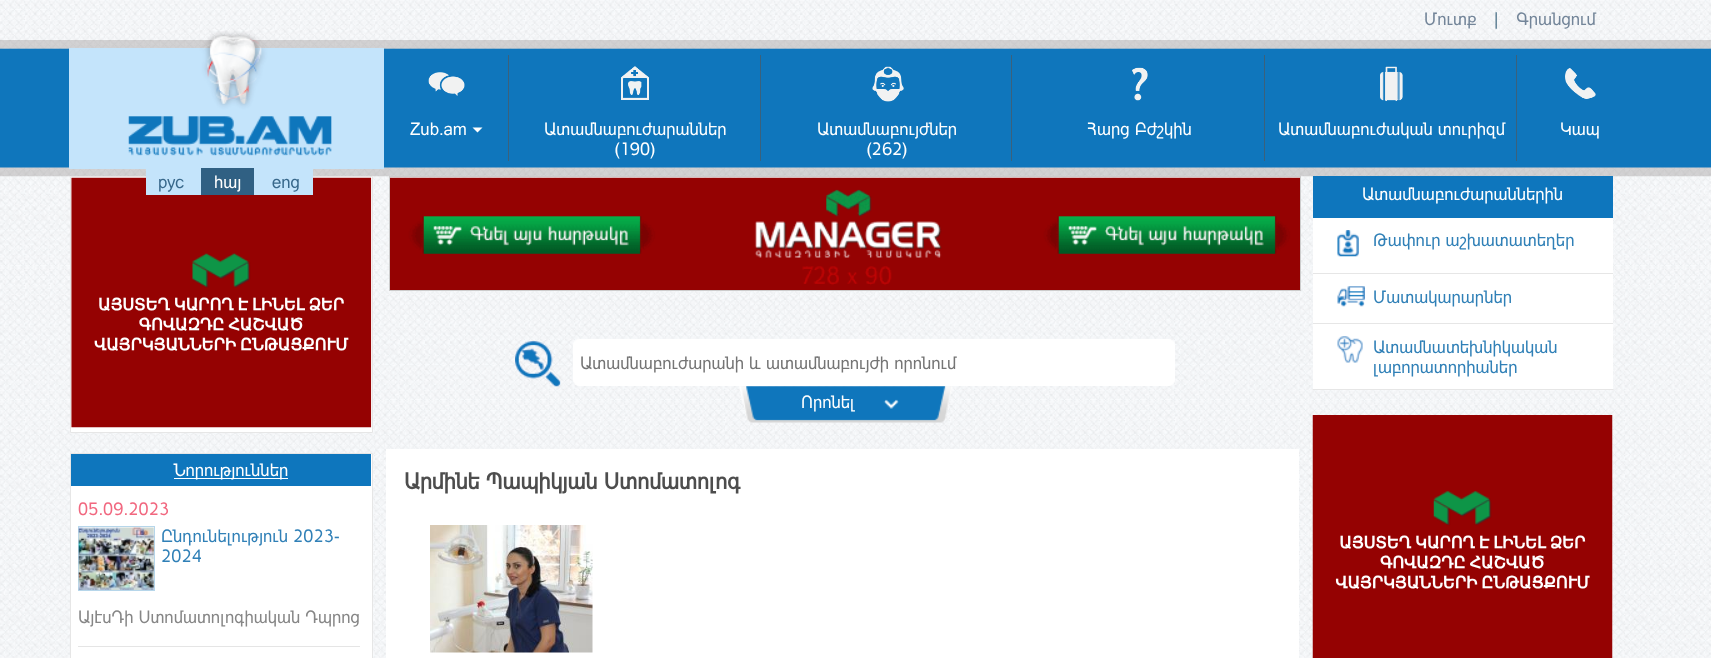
async function draw(canvas) {
  canvas.width = 1711;
  canvas.height = 658;
  const ctx = canvas.getContext('2d');
  ctx.miterLimit = 4;
  ctx.fontKerning = 'normal';
  function label(s, x, y, font, color) {
    ctx.font = font;
    ctx.fillStyle = color;
    ctx.fillText(s, x, y);
  }
  function rect(x, y, w, h, color) {
    ctx.fillStyle = color;
    ctx.fillRect(x, y, w, h);
  }
  async function image(src, x, y, w, h) {
    const img = new Image();
    img.src = src;
    await img.decode();
    ctx.drawImage(img, x, y, w, h);
  }
  let path;

  rect(0, 0, 1711, 658, '#fff');
  await image('assets/img1.png', 0, 0, 1711, 658);
  await image('assets/img2.png', 0, 40, 1711, 137);
  label('Մուտք', 1424, 25, '17.5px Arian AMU', '#738599');
  label('|', 1494, 25, '17.5px Arian AMU', '#4e738a');
  label('Գրանցում', 1516, 25, '17.5px Arian AMU', '#738599');
  await image('assets/img3.png', 428, 72, 37, 24);
  label('Zub.am', 410, 135, '17.5px Arian AMU', '#fff');
  path = new Path2D('M472.5 127.5H482.5L477.5 132.5Z');
  ctx.fill(path);
  rect(508, 55, 1, 106, '#3a617c');
  await image('assets/img4.png', 621, 66, 28, 34);
  label('Ատամնաբուժարաններ', 544, 135, '17.5px Arian AMU', '#fff');
  label('(190)', 615, 155, '17.5px Arian AMU', '#fff');
  rect(760, 55, 1, 106, '#3a617c');
  await image('assets/img5.png', 872, 66, 32, 36);
  label('Ատամնաբույժներ', 817, 135, '17.5px Arian AMU', '#fff');
  label('(262)', 867, 155, '17.5px Arian AMU', '#fff');
  rect(1011, 55, 1, 106, '#3a617c');
  await image('assets/img6.png', 1132, 67, 16, 34);
  label('Հարց Բժշկին', 1087, 135, '17.5px Arian AMU', '#fff');
  rect(1264, 55, 1, 106, '#3a617c');
  await image('assets/img7.png', 1380, 66, 23, 35);
  label('Ատամնաբուժական տուրիզմ', 1278, 135, '17.5px Arian AMU', '#fff');
  rect(1516, 55, 1, 106, '#3a617c');
  await image('assets/img8.png', 1565, 68, 31, 31);
  label('Կապ', 1560, 135, '17.5px Arian AMU', '#fff');
  rect(69, 48, 315, 121, '#c4e4fb');
  await image('assets/img9.png', 128, 31, 204, 125);
  ctx.fillStyle = '#fff';
  ctx.beginPath();
  ctx.rect(70.5, 176.5, 302, 256);
  ctx.fill();
  ctx.strokeStyle = '#e6e6e6';
  ctx.stroke();
  await image('assets/img18.png', 71, 177, 301, 251);
  rect(146, 169, 167, 26, '#c4e4fb');
  label('рус', 158, 188, '17.5px Arian AMU', '#38688b');
  rect(201, 168, 53, 27, '#306083');
  label('հայ', 214, 188, '17.5px Arian AMU', '#fff');
  label('eng', 272, 188, '17.5px Arian AMU', '#38688b');
  rect(1313, 176, 300, 42, '#0e76bd');
  label('Ատամնաբուժարաններին', 1362, 200, '17.5px Arian AMU', '#fff');
  rect(1313, 218, 300, 55, '#fff');
  rect(1313, 273, 300, 1, '#e6e6e6');
  await image('assets/img10.png', 1337, 230, 22, 27);
  label('Թափուր աշխատատեղեր', 1373, 246, '17.5px Arian AMU', '#3080b7');
  rect(1313, 274, 300, 49, '#fff');
  rect(1313, 323, 300, 1, '#e6e6e6');
  await image('assets/img11.png', 1337, 286, 28, 21);
  label('Մատակարարներ', 1373, 303, '17.5px Arian AMU', '#3080b7');
  rect(1313, 324, 300, 65, '#fff');
  rect(1313, 389, 300, 1, '#e6e6e6');
  await image('assets/img12.png', 1337, 336, 26, 27);
  label('Ատամնատեխնիկական', 1373, 353, '17.5px Arian AMU', '#3080b7');
  label('լաբորատորիաներ', 1373, 373, '17.5px Arian AMU', '#3080b7');
  await image('assets/img13.png', 1312, 415, 301, 243);
  ctx.strokeStyle = '#ccc';
  ctx.strokeRect(389.5, 176.5, 911, 114);
  await image('assets/img14.png', 390, 177, 910, 113);
  await image('assets/img15.png', 515, 341, 46, 46);
  ctx.fillStyle = '#fff';
  ctx.beginPath();
  ctx.roundRect(573.5, 339.5, 601, 46, 5.5);
  ctx.fill();
  ctx.strokeStyle = '#fff';
  ctx.stroke();
  label('Ատամնաբուժարանի և ատամնաբույժի որոնում', 580, 369, '17.5px Arian AMU', '#757575');
  await image('assets/img16.png', 739, 386, 214, 37);
  label('Որոնել', 801, 408, '17.5px Arian AMU', '#fff');
  rect(386, 449, 913, 209, '#fff');
  label('Արմինե Պապիկյան Ստոմատոլոգ', 404, 489, 'bold 22.5px Arian AMU', '#4d4d4d');
  await image('assets/img17.png', 430, 525, 163, 128);
  ctx.fillStyle = '#fff';
  ctx.beginPath();
  ctx.rect(70.5, 453.5, 302, 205);
  ctx.fill();
  ctx.strokeStyle = '#e6e6e6';
  ctx.stroke();
  rect(71, 454, 300, 32, '#0e76bd');
  rect(174, 478, 114, 1, '#fff');
  label('Նորություններ', 174, 476, '17.5px Arian AMU', '#fff');
  label('05.09.2023', 78, 515, '17.5px Arian AMU', '#f1677f');
  ctx.strokeStyle = '#b6d6ea';
  ctx.strokeRect(78.5, 526.5, 76, 64);
  await image('assets/img19.png', 78, 527, 76, 63);
  label('Ընդունելություն 2023-', 161, 542, '17.5px Arian AMU', '#3080b7');
  label('2024', 161, 562, '17.5px Arian AMU', '#3080b7');
  label('ԱյէսԴի Ստոմատոլոգիական Դպրոց', 78, 623, '17.5px Arian AMU', '#868686');
  rect(78, 646, 282, 1, '#e5e5e5');
}

draw(document.querySelector('canvas'));
